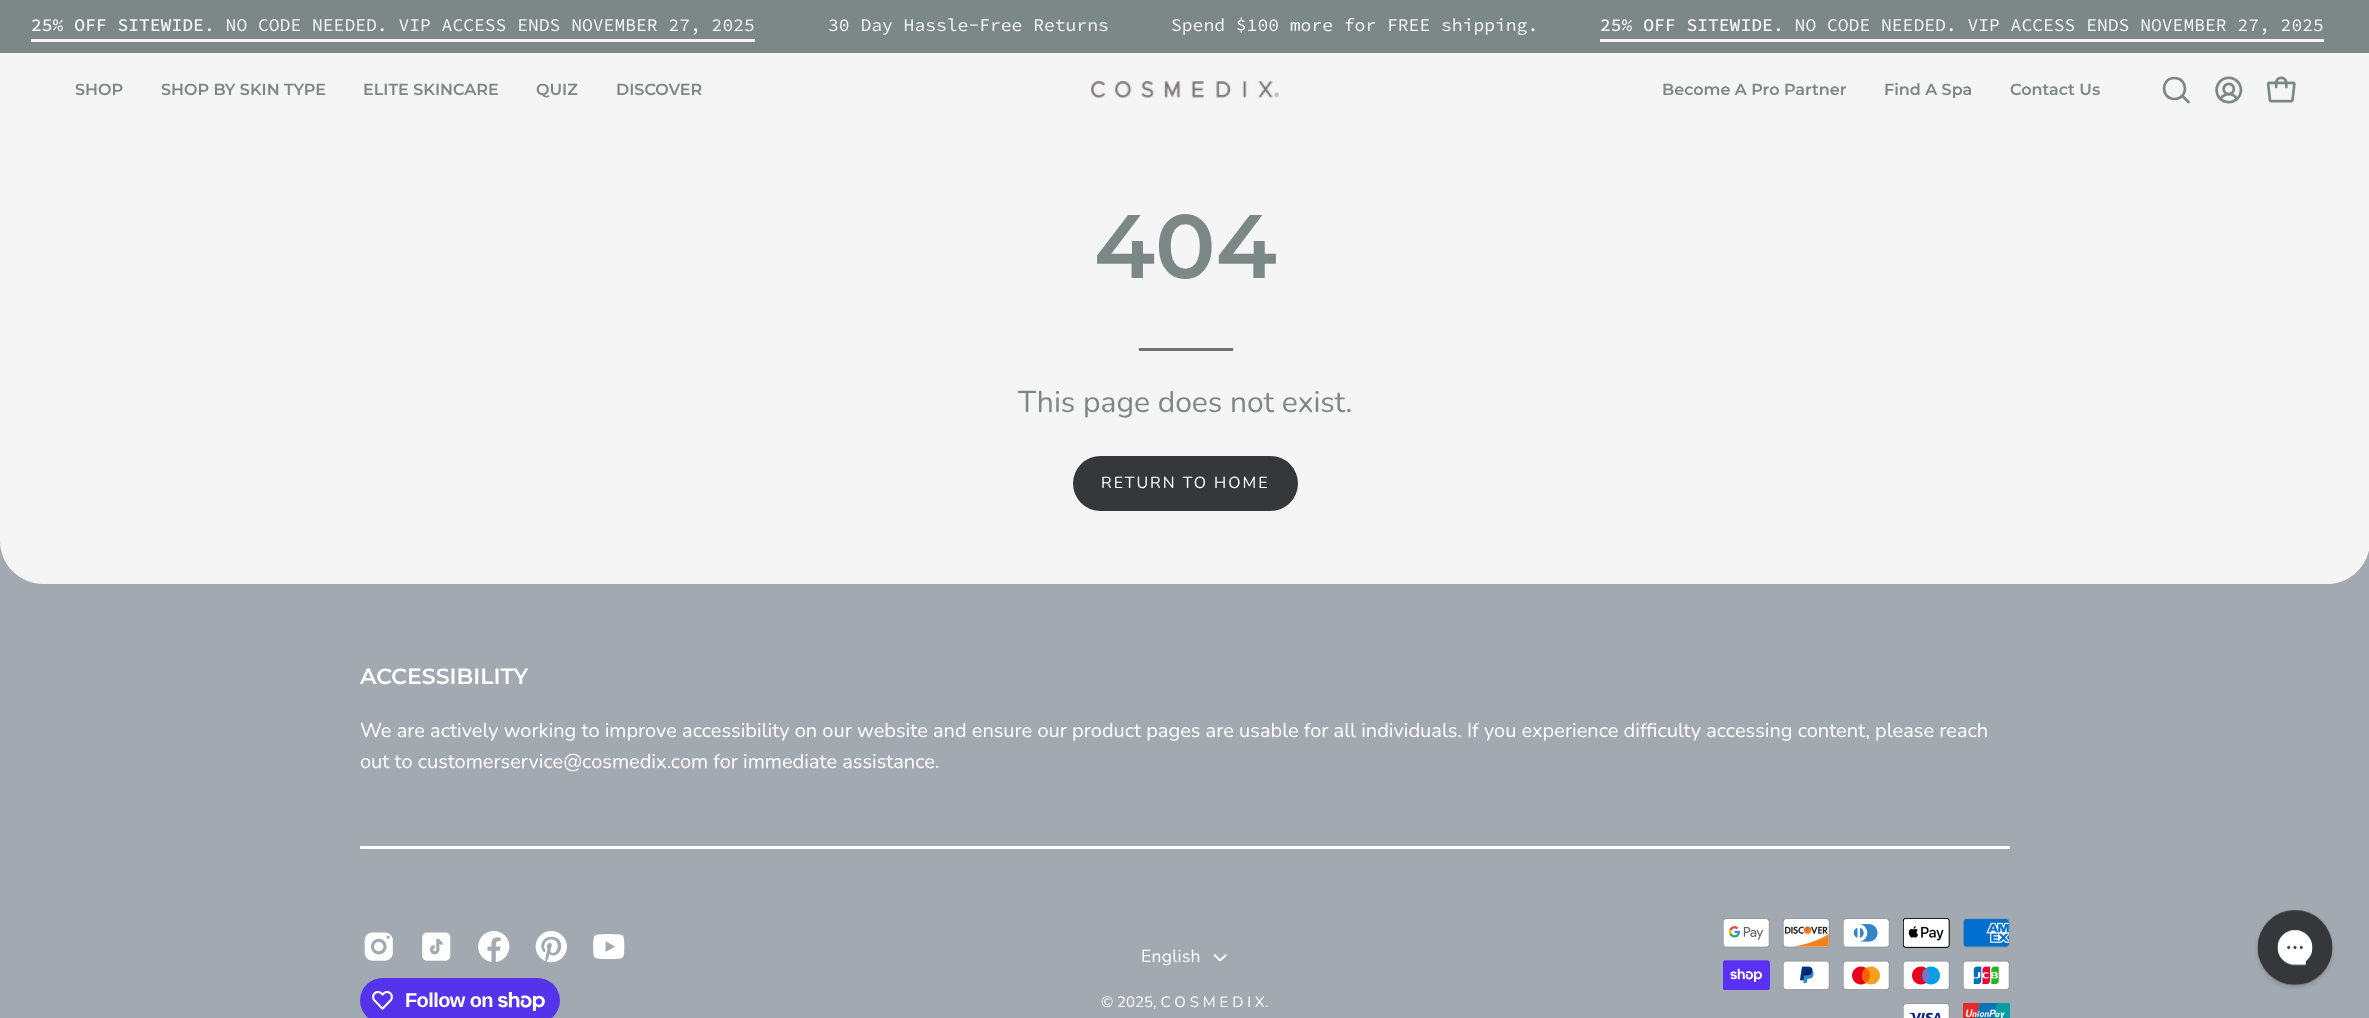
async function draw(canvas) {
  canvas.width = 2369;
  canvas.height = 1018;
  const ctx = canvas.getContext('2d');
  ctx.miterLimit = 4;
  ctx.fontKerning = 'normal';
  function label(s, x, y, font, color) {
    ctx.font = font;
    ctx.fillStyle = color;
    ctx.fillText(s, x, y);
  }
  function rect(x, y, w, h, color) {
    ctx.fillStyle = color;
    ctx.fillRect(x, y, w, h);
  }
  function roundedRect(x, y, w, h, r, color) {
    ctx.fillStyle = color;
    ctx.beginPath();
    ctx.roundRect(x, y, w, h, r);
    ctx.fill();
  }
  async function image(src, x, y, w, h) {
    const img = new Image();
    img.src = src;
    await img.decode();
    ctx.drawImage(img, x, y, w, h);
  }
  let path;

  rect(0, 0, 2369, 1018, '#a2a9b0');
  rect(0, 0, 2369, 53, '#7b8885');
  label('25% OFF SITEWIDE', 31, 31, '500 18px Source Code Pro', '#f5f5f5');
  label('. NO CODE NEEDED. VIP ACCESS ENDS NOVEMBER 27, 2025', 204, 31, '200 18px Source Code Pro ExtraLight', '#f5f5f5');
  rect(31, 39, 724, 3, '#f5f5f5');
  label('30 Day Hassle-Free Returns', 828, 31, '200 18px Source Code Pro ExtraLight', '#f5f5f5');
  label('Spend $100 more for FREE shipping.', 1171, 31, '200 18px Source Code Pro ExtraLight', '#f5f5f5');
  label('25% OFF SITEWIDE', 1600, 31, '500 18px Source Code Pro', '#f5f5f5');
  label('. NO CODE NEEDED. VIP ACCESS ENDS NOVEMBER 27, 2025', 1773, 31, '200 18px Source Code Pro ExtraLight', '#f5f5f5');
  rect(1600, 39, 724, 3, '#f5f5f5');
  rect(0, 53, 2369, 75, '#f5f5f5');
  await image('assets/img1.png', 1091, 81, 188, 17);
  label('SHOP', 75, 95, '600 16px Montserrat', '#7b8885');
  label('SHOP BY SKIN TYPE', 161, 95, '600 16px Montserrat', '#7b8885');
  label('ELITE SKINCARE', 363, 95, '600 16px Montserrat', '#7b8885');
  label('QUIZ', 536, 95, '600 16px Montserrat', '#7b8885');
  label('DISCOVER', 616, 95, '600 16px Montserrat', '#7b8885');
  label('Become A Pro Partner', 1662, 95, '600 16px Montserrat', '#7b8885');
  label('Find A Spa', 1884, 95, '600 16px Montserrat', '#7b8885');
  label('Contact Us', 2010, 95, '600 16px Montserrat', '#7b8885');
  path = new Path2D('M2174.5 99C2188.5 99 2188.5 78 2174.5 78C2160.5 78 2160.5 99 2174.5 99ZM2182.5 96L2188.5 102');
  ctx.strokeStyle = '#7b8885';
  ctx.lineWidth = 2.7;
  ctx.lineCap = 'round';
  ctx.lineJoin = 'round';
  ctx.stroke(path);
  await image('assets/img2.png', 2215, 76, 28, 28);
  await image('assets/img3.png', 2266, 76, 30, 27);
  ctx.fillStyle = '#f5f5f5';
  path = new Path2D('M0 128H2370V541C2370 564.5 2350.5 584 2327 584H43C19.5 584 0 564.5 0 541Z');
  ctx.fill(path);
  label('404', 1094, 278, '600 90px Montserrat', '#7b8885');
  rect(1139, 348, 94, 3, '#736f72');
  label('This page does not exist.', 1018, 412, '30px Nunito', '#7b8885');
  roundedRect(1073, 456, 225, 55, 27.5, '#36373a');
  ctx.letterSpacing = '2px';
  label('RETURN TO HOME', 1101, 488, '16px Nunito', '#fff');
  ctx.letterSpacing = '0px';
  label('ACCESSIBILITY', 360, 684, '600 22px Montserrat', '#fff');
  label('We are actively working to improve accessibility on our website and ensure our product pages are usable for all individuals. If you experience difficulty accessing content, please reach', 360, 737, '20px Nunito', '#fff');
  label('out to customerservice@cosmedix.com for immediate assistance.', 360, 768, '20px Nunito', '#fff');
  rect(360, 846, 1650, 3, '#fff');
  await image('assets/img4.png', 364, 932, 29, 29);
  await image('assets/img5.png', 422, 932, 29, 29);
  await image('assets/img6.png', 478, 931, 32, 31);
  await image('assets/img7.png', 535, 931, 32, 32);
  await image('assets/img8.png', 593, 934, 32, 26);
  roundedRect(360, 978, 200, 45, 22.5, '#5433eb');
  await image('assets/img9.png', 372, 991, 21, 19);
  ctx.letterSpacing = '-0.6px';
  label('Follow on', 405, 1007, 'bold 20px Liberation Sans', '#fff');
  await image('assets/img10.png', 498, 992, 47, 19);
  ctx.letterSpacing = '0.25px';
  label('English', 1141, 962, '17.5px Nunito', '#fff');
  path = new Path2D('M1226 955L1220 960.5L1214.5 955');
  ctx.strokeStyle = '#fff';
  ctx.lineWidth = 1.8;
  ctx.stroke(path);
  ctx.letterSpacing = '0px';
  label('© 2025, C O S M E D I X.', 1101, 1007, '15px Nunito', '#fff');
  await image('assets/img11.png', 1723, 918, 47, 30);
  await image('assets/img12.png', 1783, 918, 47, 30);
  await image('assets/img13.png', 1843, 918, 47, 30);
  await image('assets/img14.png', 1903, 918, 47, 30);
  await image('assets/img15.png', 1963, 918, 47, 30);
  await image('assets/img16.png', 1723, 960, 47, 30);
  await image('assets/img17.png', 1783, 960, 47, 30);
  await image('assets/img18.png', 1843, 960, 47, 30);
  await image('assets/img19.png', 1903, 960, 47, 30);
  await image('assets/img20.png', 1963, 960, 47, 30);
  await image('assets/img21.png', 1903, 1003, 47, 15);
  await image('assets/img22.png', 1963, 1003, 47, 15);
  await image('assets/img23.png', 2255, 909, 80, 81);
}

draw(document.querySelector('canvas'));
